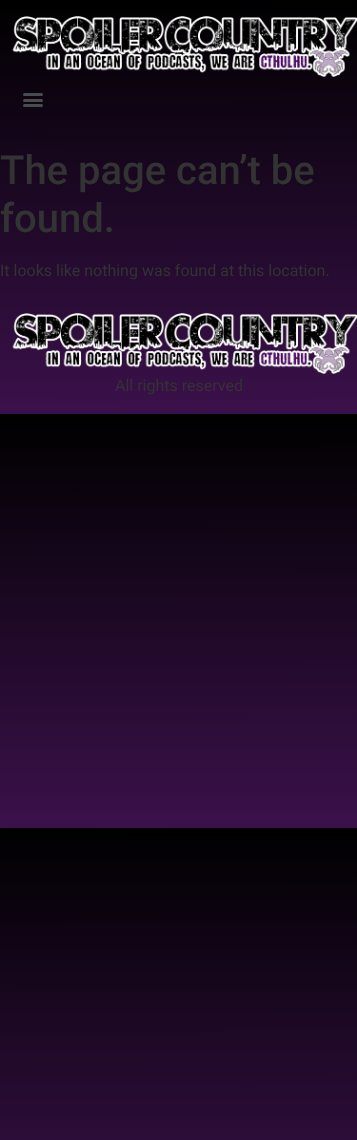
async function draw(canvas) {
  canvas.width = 357;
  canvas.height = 1140;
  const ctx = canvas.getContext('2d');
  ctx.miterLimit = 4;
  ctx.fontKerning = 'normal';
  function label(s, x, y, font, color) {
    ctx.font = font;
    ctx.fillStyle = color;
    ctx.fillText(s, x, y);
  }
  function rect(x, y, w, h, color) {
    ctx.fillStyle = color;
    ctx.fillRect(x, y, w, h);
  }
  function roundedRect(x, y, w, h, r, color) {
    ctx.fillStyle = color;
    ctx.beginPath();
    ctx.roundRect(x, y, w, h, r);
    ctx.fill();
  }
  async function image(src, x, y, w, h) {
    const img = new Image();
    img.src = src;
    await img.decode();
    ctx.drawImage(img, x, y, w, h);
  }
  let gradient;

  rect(0, 0, 357, 1140, '#fff');
  gradient = ctx.createLinearGradient(178, 0, 179, 414);
  gradient.addColorStop(0, '#000');
  gradient.addColorStop(1, '#3b114b');
  ctx.fillStyle = gradient;
  ctx.fillRect(0, 0, 357, 414);
  gradient = ctx.createLinearGradient(178, 414, 179, 828);
  gradient.addColorStop(0, '#000');
  gradient.addColorStop(1, '#3b114b');
  ctx.fillStyle = gradient;
  ctx.fillRect(0, 414, 357, 414);
  gradient = ctx.createLinearGradient(178, 828, 179, 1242);
  gradient.addColorStop(0, '#000');
  gradient.addColorStop(1, '#3b114b');
  ctx.fillStyle = gradient;
  ctx.fillRect(0, 828, 357, 312);
  await image('assets/img1.png', 12, 16, 345, 61);
  roundedRect(23, 99, 20, 3, 1.5, '#494c4f');
  roundedRect(23, 93, 20, 3, 1.5, '#494c4f');
  roundedRect(23, 104, 20, 3, 1.5, '#494c4f');
  label('The page can’t be', 0, 184, '500 40px Roboto', '#333');
  label('found.', 0, 232, '500 40px Roboto', '#333');
  label('It looks like nothing was found at this location.', 0, 276, '16px Roboto', '#333');
  await image('assets/img2.png', 12, 313, 345, 61);
  label('All rights reserved', 115, 391, '16px Roboto', '#333');
}

draw(document.querySelector('canvas'));
